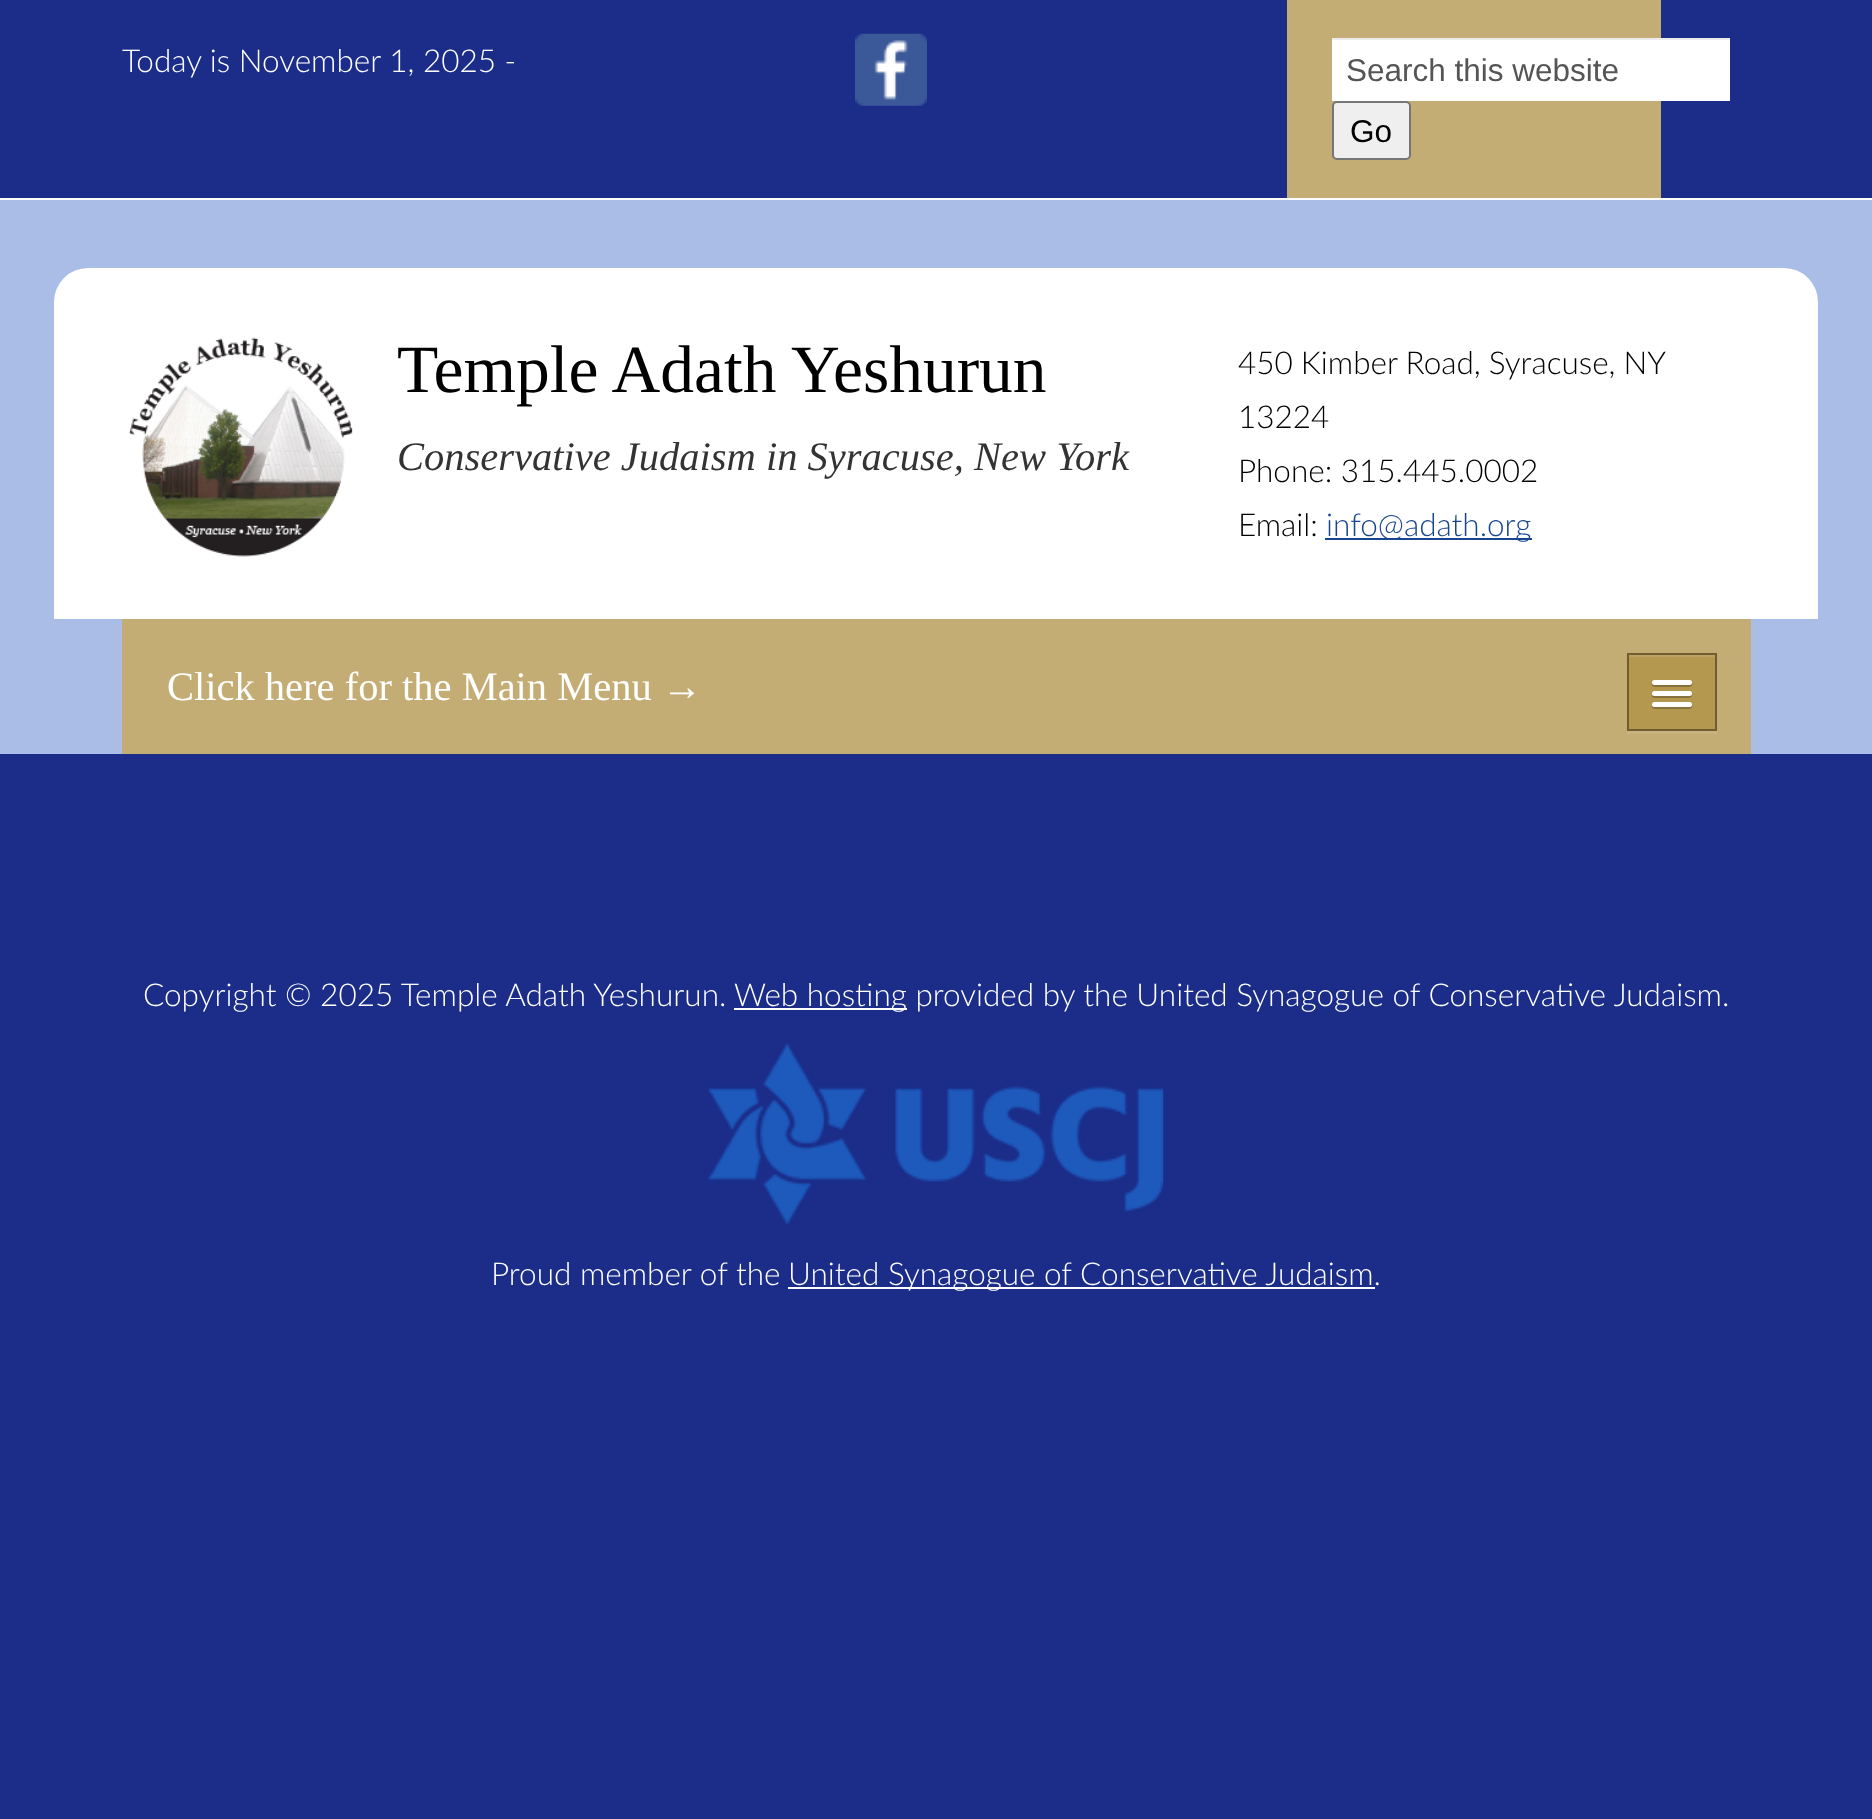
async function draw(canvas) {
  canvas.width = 1872;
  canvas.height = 1819;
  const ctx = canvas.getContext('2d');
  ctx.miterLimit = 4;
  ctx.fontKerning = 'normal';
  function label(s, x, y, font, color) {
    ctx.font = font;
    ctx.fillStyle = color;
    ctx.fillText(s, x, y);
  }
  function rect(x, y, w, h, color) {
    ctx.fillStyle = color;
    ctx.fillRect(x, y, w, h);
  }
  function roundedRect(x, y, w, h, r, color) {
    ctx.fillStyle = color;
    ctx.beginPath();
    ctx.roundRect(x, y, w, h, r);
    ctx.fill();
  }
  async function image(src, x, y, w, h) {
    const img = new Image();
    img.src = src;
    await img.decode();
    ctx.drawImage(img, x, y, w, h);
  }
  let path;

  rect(0, 0, 1872, 1819, '#1b2d89');
  rect(0, 198, 1872, 2, '#fff');
  label('Today is November 1, 2025 -', 122, 72, '300 31.5px Lato', '#fff');
  await image('assets/img1.png', 855, 33, 72, 73);
  rect(1287, 0, 374, 198, '#c4ad74');
  rect(1332, 40, 398, 61, '#fff');
  rect(1332, 38, 398, 2, '#ececec');
  label('Search this website', 1346, 81, '31.5px Liberation Sans', '#555');
  ctx.fillStyle = '#efefef';
  ctx.beginPath();
  ctx.roundRect(1333, 102, 77, 57, 4);
  ctx.fill();
  ctx.strokeStyle = '#767676';
  ctx.lineWidth = 2;
  ctx.stroke();
  label('Go', 1350, 142, '31.5px Liberation Sans', '#000');
  rect(0, 200, 1872, 554, '#aabde6');
  ctx.fillStyle = '#fff';
  ctx.beginPath();
  ctx.roundRect(54, 268, 1764, 351, [34, 34, 0, 0]);
  ctx.fill();
  await image('assets/img2.png', 128, 337, 225, 220);
  label('Temple Adath Yeshurun', 397, 392, '67.5px Liberation Serif', '#000');
  label('Conservative Judaism in Syracuse, New York', 397, 470, 'italic 40.5px Liberation Serif', '#333');
  ctx.wordSpacing = '-0.5px';
  label('450 Kimber Road, Syracuse, NY', 1238, 374, '300 31.5px Lato', '#000');
  ctx.wordSpacing = '0px';
  label('13224', 1238, 428, '300 31.5px Lato', '#000');
  label('Phone: 315.445.0002', 1238, 482, '300 31.5px Lato', '#000');
  label('Email:', 1238, 536, '300 31.5px Lato', '#000');
  rect(1325, 538, 207, 2, '#174590');
  label('info@adath.org', 1326, 536, '300 31.5px Lato', '#174590');
  rect(122, 619, 1629, 135, '#c4ad74');
  label('Click here for the Main Menu →', 167, 700, '40.5px Liberation Serif', '#fff');
  ctx.fillStyle = '#c8b37e';
  path = new Path2D('M1627 731V734H1717V655V731Z');
  ctx.fill(path);
  rect(1629, 657, 86, 72, '#b59850');
  rect(1629, 655, 86, 2, '#bca262');
  ctx.strokeStyle = '#705d2f';
  ctx.strokeRect(1628, 654, 88, 76);
  ctx.fillStyle = '#88723c';
  path = new Path2D('M1652 683C1650 688 1659 687 1660 687H1684C1684 687 1695 688 1692 683L1690 684C1686 684 1654 685 1652 683Z');
  ctx.fill(path);
  roundedRect(1652, 680, 40, 5, 2.5, '#fff');
  ctx.fillStyle = '#88723c';
  path = new Path2D('M1652 695C1650 699 1659 698 1660 698H1684C1684 698 1694 699 1692 694L1690 695C1686 696 1653 696 1652 695Z');
  ctx.fill(path);
  roundedRect(1652, 691, 40, 5, 2.5, '#fff');
  ctx.fillStyle = '#88723c';
  path = new Path2D('M1652 706C1651 710 1659 709 1660 709H1684C1685 709 1694 710 1692 705L1690 706C1686 707 1653 707 1652 706Z');
  ctx.fill(path);
  roundedRect(1652, 702, 40, 5, 2.5, '#fff');
  label('Copyright © 2025 Temple Adath Yeshurun.', 143, 1006, '300 31.5px Lato', '#fff');
  rect(734, 1008, 173, 2, '#fff');
  label('Web hosting provided by the United Synagogue of Conservative Judaism.', 734, 1006, '300 31.5px Lato', '#fff');
  await image('assets/img3.png', 708, 1044, 456, 180);
  label('Proud member of the', 491, 1285, '300 31.5px Lato', '#fff');
  rect(788, 1287, 587, 2, '#fff');
  label('United Synagogue of Conservative Judaism.', 788, 1285, '300 31.5px Lato', '#fff');
}

draw(document.querySelector('canvas'));
